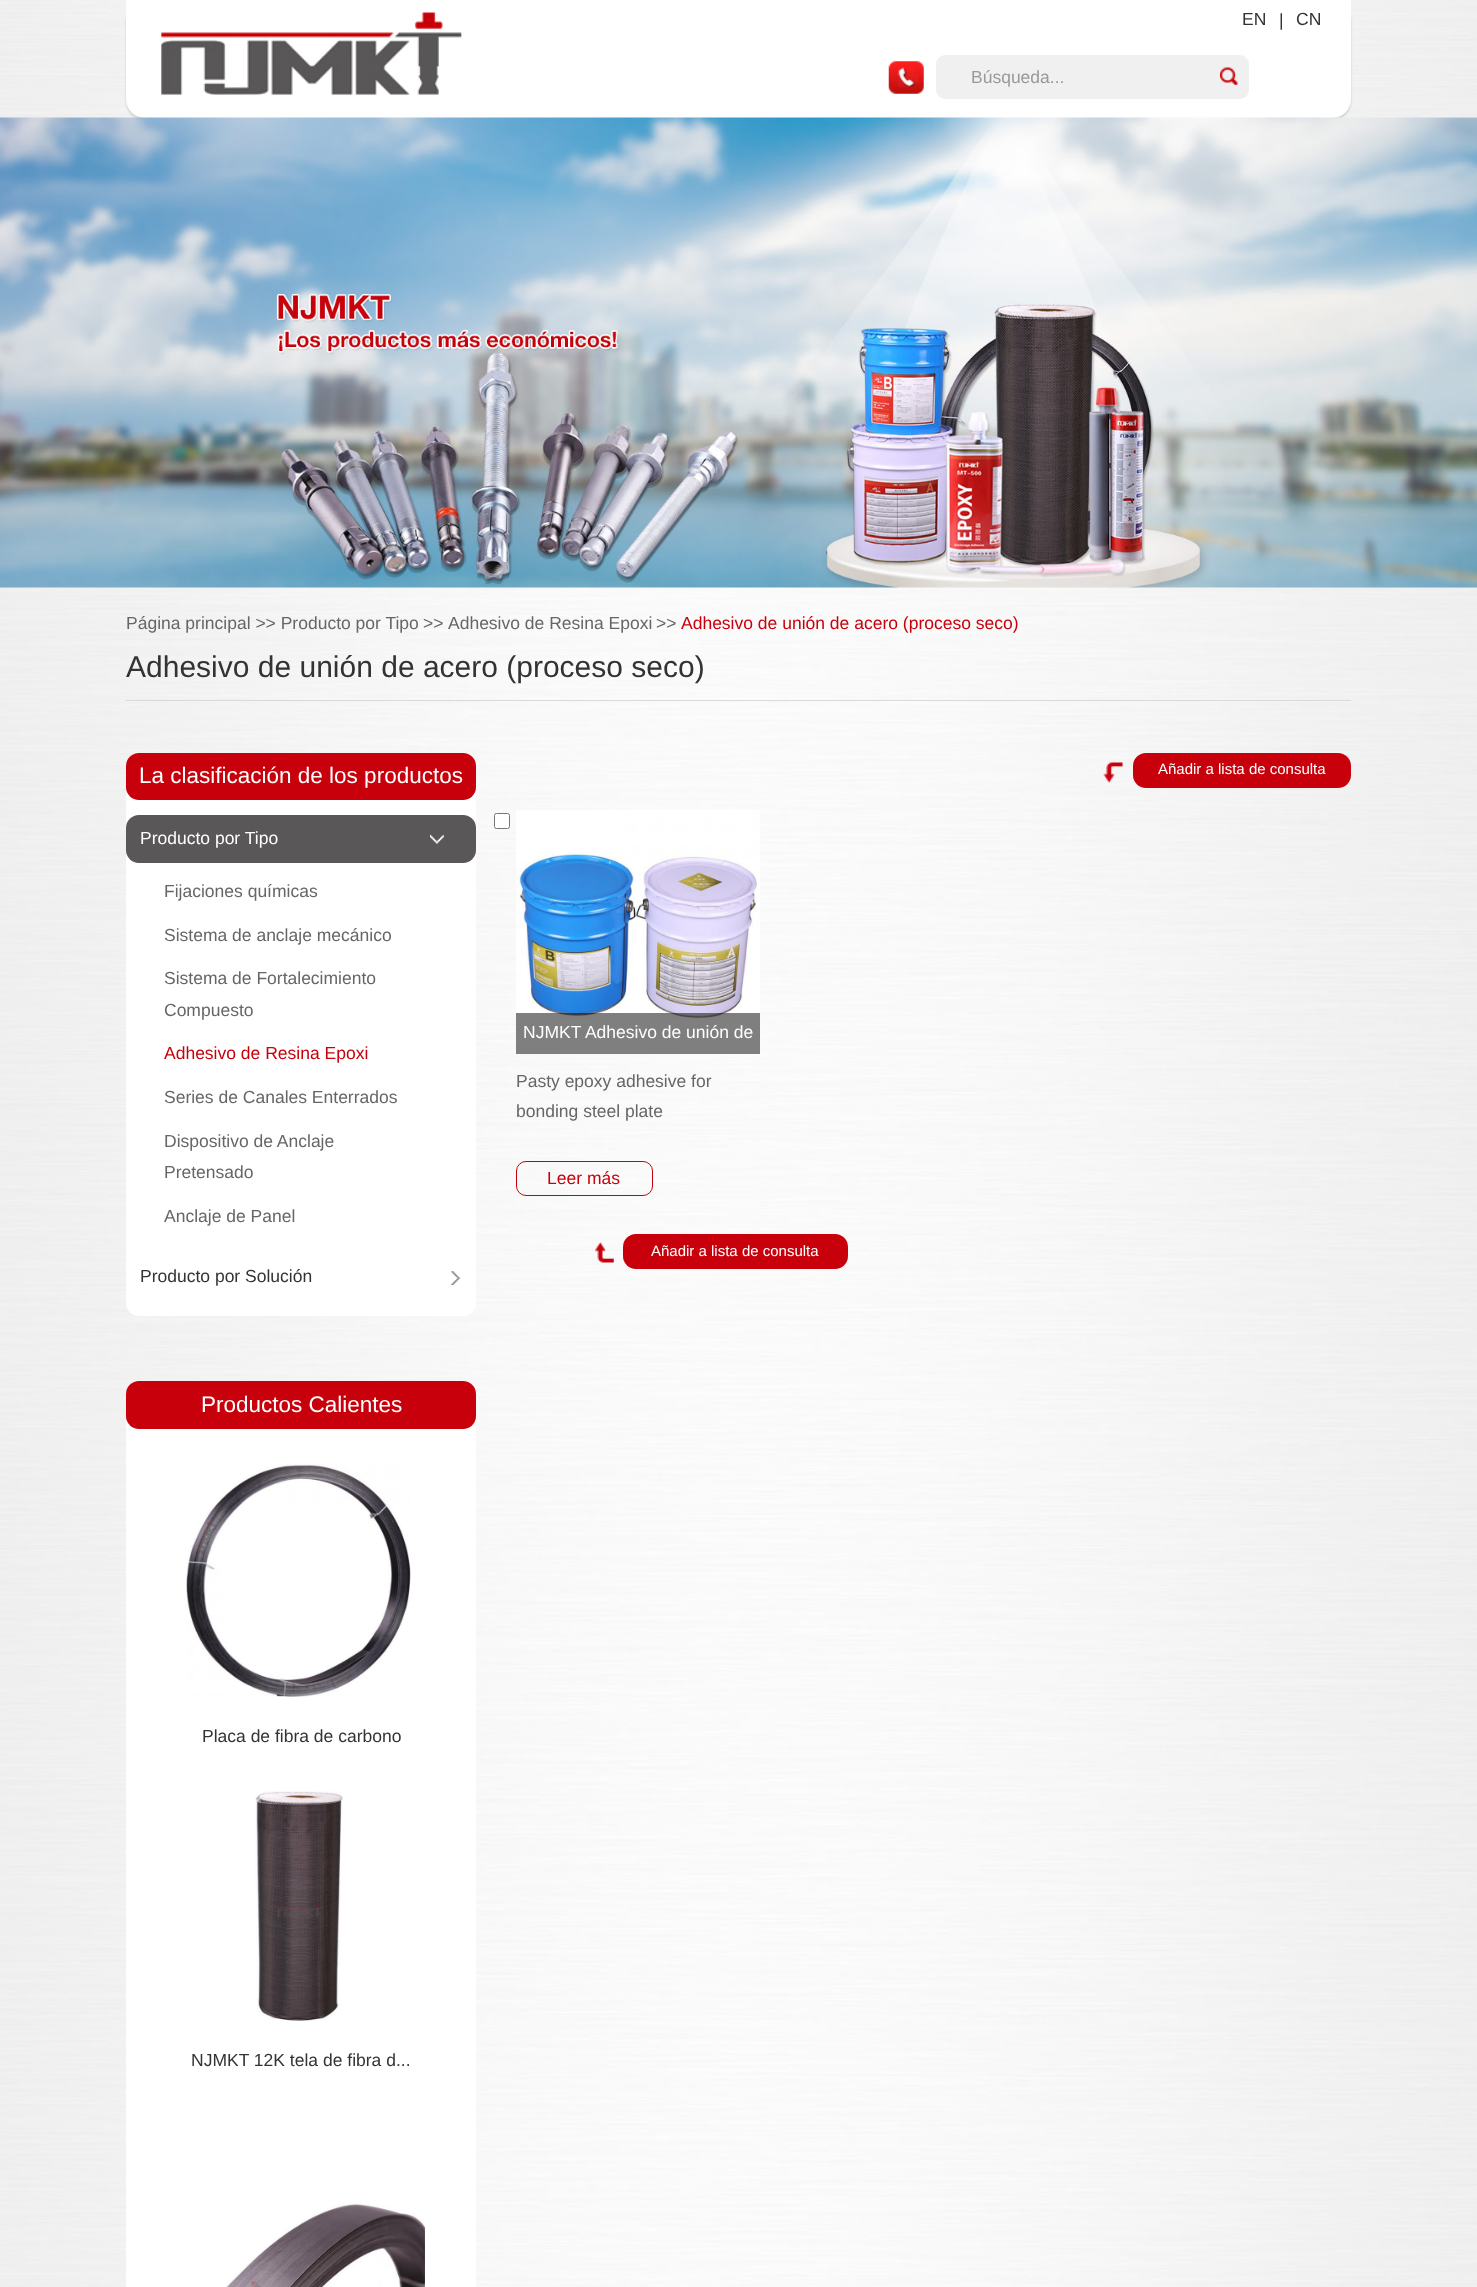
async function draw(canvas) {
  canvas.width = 1477;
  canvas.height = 2287;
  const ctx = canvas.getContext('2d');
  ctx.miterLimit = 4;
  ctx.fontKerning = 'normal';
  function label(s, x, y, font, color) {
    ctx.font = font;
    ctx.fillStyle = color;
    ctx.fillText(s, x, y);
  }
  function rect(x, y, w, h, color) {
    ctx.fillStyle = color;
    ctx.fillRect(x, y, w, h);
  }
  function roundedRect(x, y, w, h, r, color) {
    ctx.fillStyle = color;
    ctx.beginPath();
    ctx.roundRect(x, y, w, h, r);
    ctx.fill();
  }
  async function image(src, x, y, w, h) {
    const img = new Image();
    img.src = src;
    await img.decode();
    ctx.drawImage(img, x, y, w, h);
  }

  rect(0, 0, 1477, 2287, '#fff');
  await image('assets/img1.png', 0, 0, 1477, 2287);
  ctx.fillStyle = '#00000026';
  ctx.filter = 'blur(1px)';
  ctx.beginPath();
  ctx.roundRect(126, 3, 1225, 117, 19);
  ctx.fill();
  ctx.filter = 'none';
  ctx.fillStyle = '#fff';
  ctx.beginPath();
  ctx.roundRect(126, 0, 1225, 118, [0, 0, 19, 19]);
  ctx.fill();
  await image('assets/img2.png', 161, 12, 301, 83);
  label('EN', 1242, 25, '17.5px Liberation Sans', '#333');
  label('|', 1279, 26, '17.5px Liberation Sans', '#333');
  label('CN', 1296, 25, '17.5px Liberation Sans', '#333');
  await image('assets/img3.png', 888, 61, 36, 33);
  roundedRect(936, 55, 313, 44, 9, '#f0f0f0');
  label('Búsqueda...', 971, 83, '17.5px Liberation Sans', '#999');
  await image('assets/img4.png', 1220, 67, 18, 18);
  await image('assets/img5.png', 0, 117, 1477, 471);
  label('Página principal >> Producto por Tipo', 126, 629, '17.5px Liberation Sans', '#666');
  label('>>', 423, 629, '17.5px Liberation Sans', '#666');
  label('Adhesivo de Resina Epoxi', 448, 629, '17.5px Liberation Sans', '#666');
  label('>>', 656, 629, '17.5px Liberation Sans', '#666');
  label('Adhesivo de unión de acero (proceso seco)', 681, 629, '17.5px Liberation Sans', '#c7000b');
  rect(126, 700, 1225, 1, '#d9d9d9');
  label('Adhesivo de unión de acero (proceso seco)', 126, 677, '30px Liberation Sans', '#333');
  roundedRect(126, 753, 350, 563, 13, '#fff');
  roundedRect(126, 753, 350, 47, 13, '#c7000b');
  label('La clasificación de los productos', 139, 783, '22.5px Liberation Sans', '#fff');
  roundedRect(126, 815, 350, 48, 13, '#595757');
  await image('assets/img6.png', 430, 834, 14, 10);
  label('Producto por Tipo', 140, 844, '17.5px Liberation Sans', '#fff');
  label('Fijaciones químicas', 164, 897, '17.5px Liberation Sans', '#666');
  label('Sistema de anclaje mecánico', 164, 941, '17.5px Liberation Sans', '#666');
  label('Sistema de Fortalecimiento', 164, 984, '17.5px Liberation Sans', '#666');
  label('Compuesto', 164, 1016, '17.5px Liberation Sans', '#666');
  label('Adhesivo de Resina Epoxi', 164, 1059, '17.5px Liberation Sans', '#c7000b');
  label('Series de Canales Enterrados', 164, 1103, '17.5px Liberation Sans', '#666');
  label('Dispositivo de Anclaje', 164, 1147, '17.5px Liberation Sans', '#666');
  label('Pretensado', 164, 1178, '17.5px Liberation Sans', '#666');
  label('Anclaje de Panel', 164, 1222, '17.5px Liberation Sans', '#666');
  await image('assets/img7.png', 451, 1271, 10, 14);
  label('Producto por Solución', 140, 1282, '17.5px Liberation Sans', '#333');
  roundedRect(126, 1381, 350, 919, 13, '#fff');
  roundedRect(126, 1381, 350, 48, 13, '#c7000b');
  label('Productos Calientes', 201, 1412, '22.5px Liberation Sans', '#fff');
  await image('assets/img8.png', 186, 1464, 225, 233);
  label('Placa de fibra de carbono', 202, 1742, '17.5px Liberation Sans', '#333');
  await image('assets/img9.png', 255, 1791, 88, 230);
  label('NJMKT 12K tela de fibra d...', 191, 2066, '17.5px Liberation Sans', '#333');
  await image('assets/img10.png', 226, 2204, 199, 83);
  await image('assets/img11.png', 1103, 762, 20, 21);
  roundedRect(1133, 753, 218, 35, 13, '#c7000b');
  label('Añadir a lista de consulta', 1158, 774, '15px Liberation Sans', '#fff');
  ctx.beginPath();
  ctx.roundRect(494.5, 813.5, 15, 15, 2);
  ctx.fill();
  ctx.strokeStyle = '#767676';
  ctx.stroke();
  await image('assets/img12.png', 516, 810, 244, 244);
  rect(516, 1013, 244, 41, '#00000080');
  label('NJMKT Adhesivo de unión de', 523, 1038, '17.5px Liberation Sans', '#fff');
  label('Pasty epoxy adhesive for', 516, 1087, '17.5px Liberation Sans', '#666');
  label('bonding steel plate', 516, 1117, '17.5px Liberation Sans', '#666');
  ctx.beginPath();
  ctx.roundRect(516.5, 1161.5, 136, 34, 9.5);
  ctx.strokeStyle = '#c7000b';
  ctx.stroke();
  label('Leer más', 547, 1184, '17.5px Liberation Sans', '#c7000b');
  await image('assets/img13.png', 595, 1242, 19, 21);
  roundedRect(623, 1234, 225, 35, 13, '#c7000b');
  label('Añadir a lista de consulta', 651, 1256, '15px Liberation Sans', '#fff');
}

draw(document.querySelector('canvas'));
